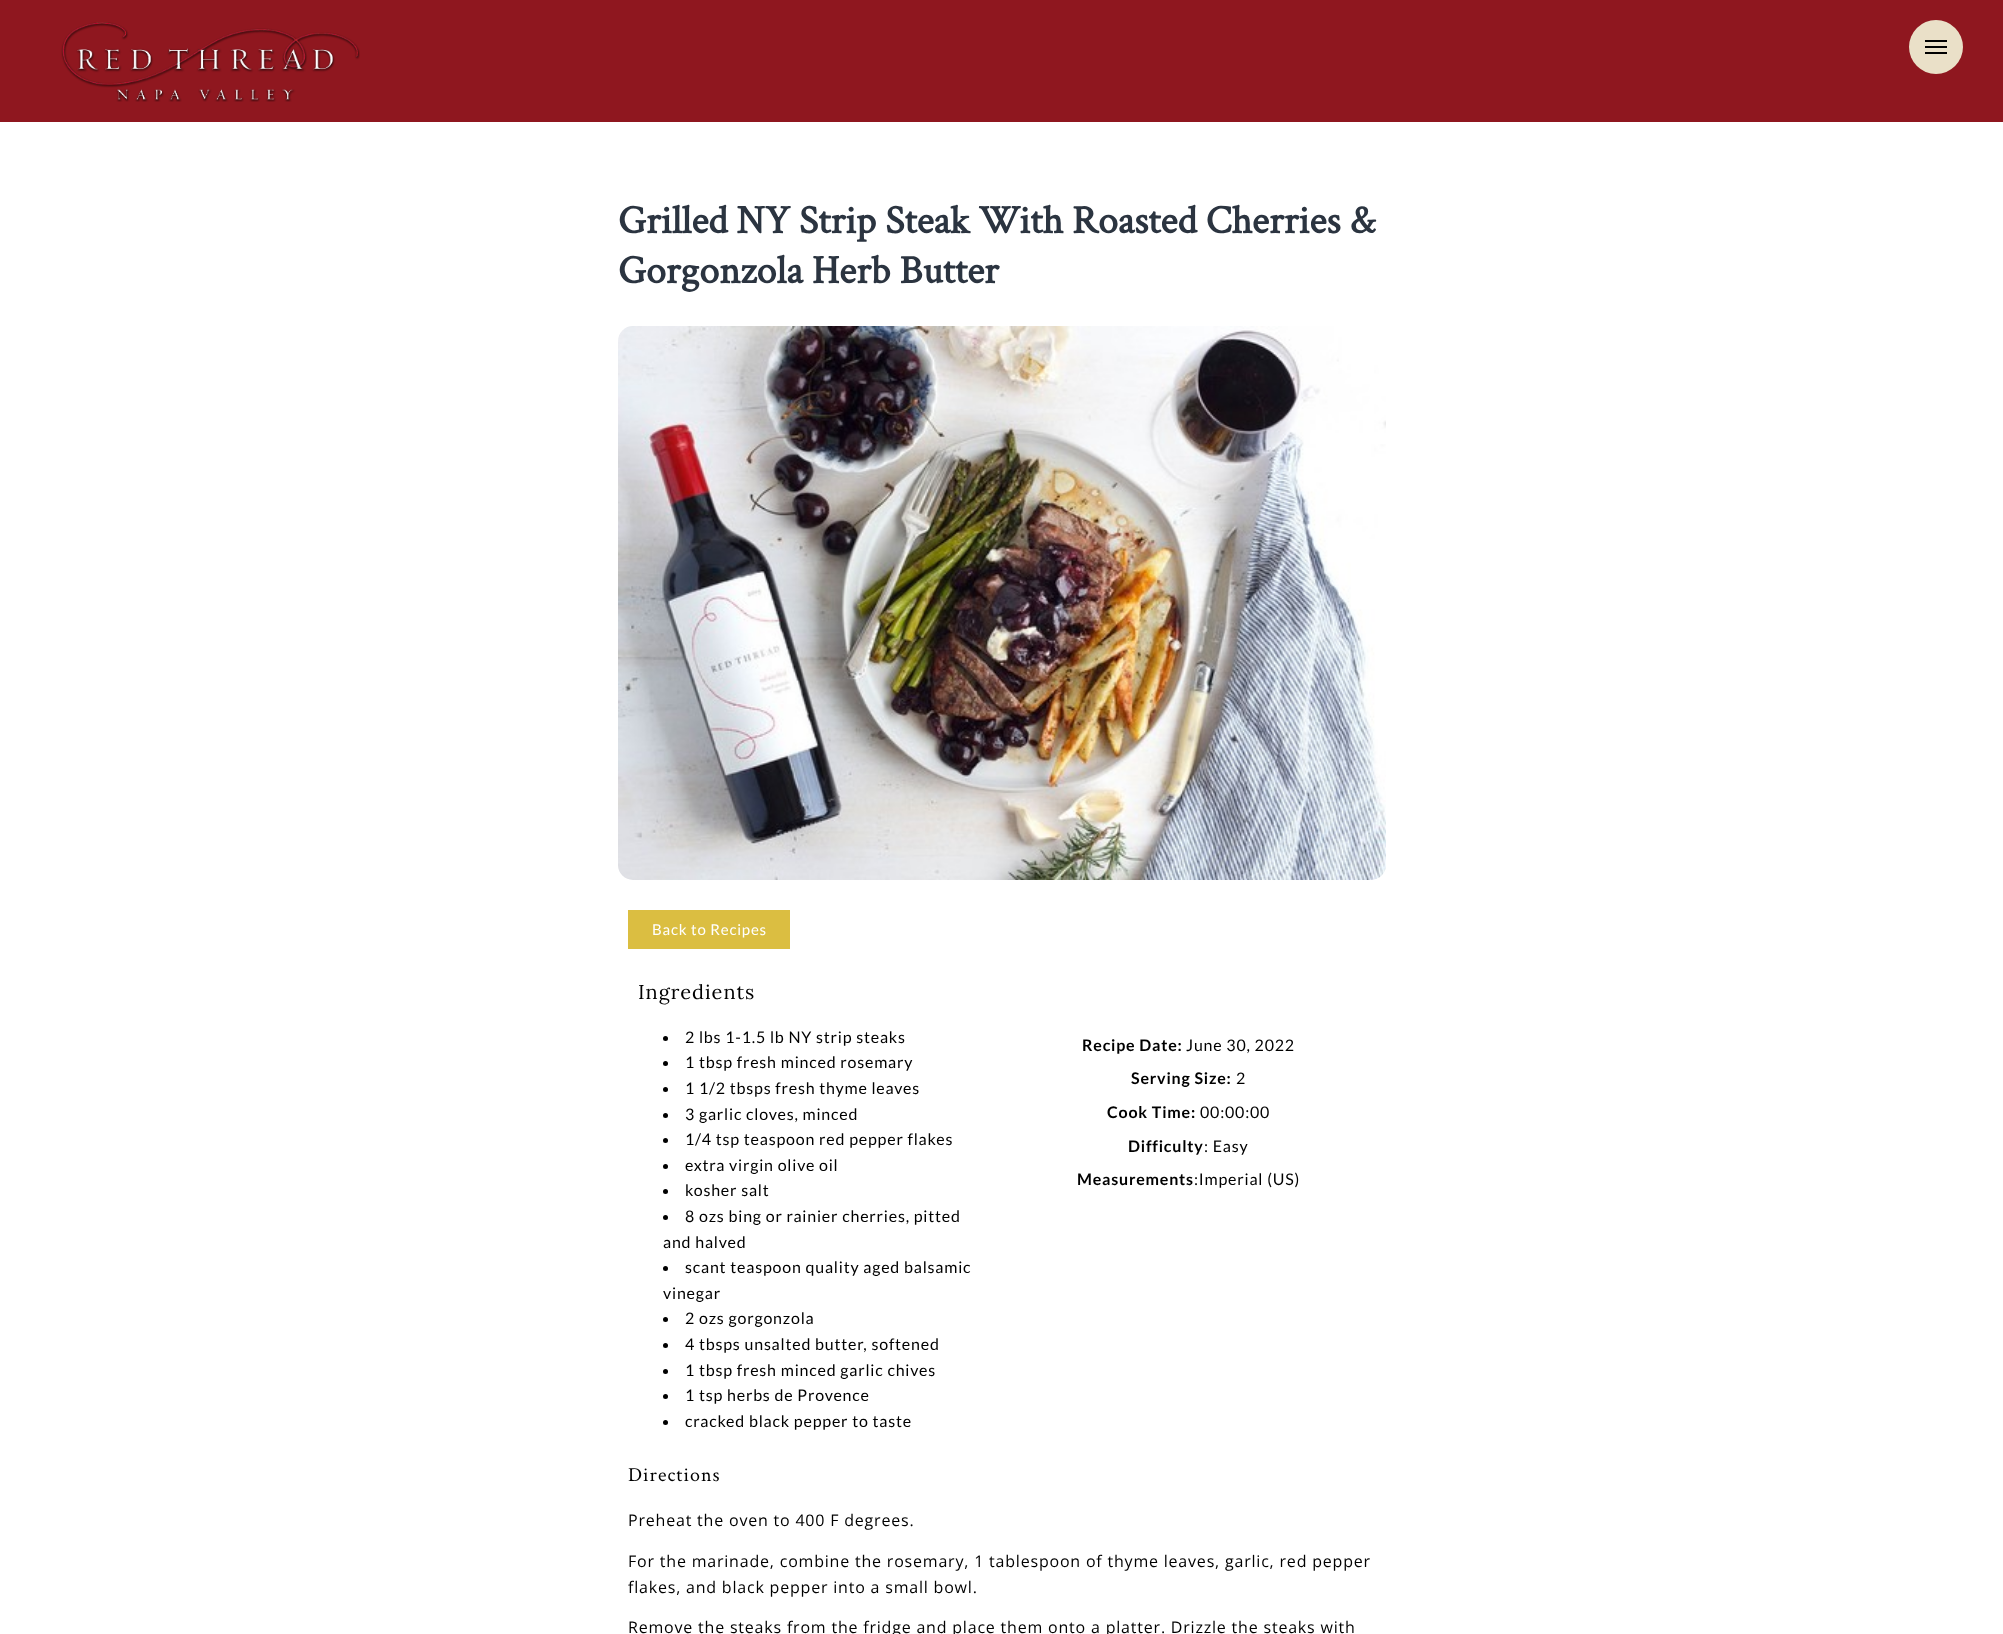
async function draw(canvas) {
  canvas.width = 2003;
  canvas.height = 1634;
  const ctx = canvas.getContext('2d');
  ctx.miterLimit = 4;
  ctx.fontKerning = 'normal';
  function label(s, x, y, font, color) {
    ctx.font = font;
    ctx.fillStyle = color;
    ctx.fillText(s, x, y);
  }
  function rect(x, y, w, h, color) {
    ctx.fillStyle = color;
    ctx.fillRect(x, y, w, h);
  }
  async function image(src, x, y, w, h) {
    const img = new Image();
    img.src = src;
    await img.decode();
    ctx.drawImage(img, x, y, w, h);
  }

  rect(0, 0, 2003, 1634, '#fff');
  rect(0, 0, 2003, 122, '#8f171f');
  ctx.fillStyle = '#eae0c8';
  ctx.beginPath();
  ctx.arc(1936, 47, 27, 0, 2 * Math.PI);
  ctx.fill();
  rect(1925, 46, 22, 2, '#000');
  rect(1925, 40, 22, 2, '#000');
  rect(1925, 52, 22, 2, '#000');
  await image('assets/img1.png', 61, 22, 299, 80);
  label('Grilled NY Strip Steak With Roasted Cherries &', 618, 233, 'bold 40px Crimson Text', '#2b3440');
  label('Gorgonzola Herb Butter', 618, 283, 'bold 40px Crimson Text', '#2b3440');
  await image('assets/img2.png', 618, 326, 768, 554);
  rect(628, 910, 162, 39, '#dbbe41');
  ctx.letterSpacing = '0.8px';
  label('Back to Recipes', 652, 935, '15px Lato', '#fff');
  ctx.letterSpacing = '1px';
  label('Ingredients', 638, 999, '20px Lora', '#000');
  ctx.beginPath();
  ctx.arc(665.5, 1038.5, 2.5, 0, 2 * Math.PI);
  ctx.fill();
  ctx.letterSpacing = '0.8px';
  label('2 lbs 1-1.5 lb NY strip steaks', 685, 1043, '16px Lato', '#000');
  ctx.beginPath();
  ctx.arc(665.5, 1063.5, 2.5, 0, 2 * Math.PI);
  ctx.fill();
  label('1 tbsp fresh minced rosemary', 685, 1068, '16px Lato', '#000');
  ctx.beginPath();
  ctx.arc(665.5, 1089.5, 2.5, 0, 2 * Math.PI);
  ctx.fill();
  label('1 1/2 tbsps fresh thyme leaves', 685, 1094, '16px Lato', '#000');
  ctx.beginPath();
  ctx.arc(665.5, 1115.5, 2.5, 0, 2 * Math.PI);
  ctx.fill();
  label('3 garlic cloves, minced', 685, 1120, '16px Lato', '#000');
  ctx.beginPath();
  ctx.arc(665.5, 1140.5, 2.5, 0, 2 * Math.PI);
  ctx.fill();
  label('1/4 tsp teaspoon red pepper flakes', 685, 1145, '16px Lato', '#000');
  ctx.beginPath();
  ctx.arc(665.5, 1166.5, 2.5, 0, 2 * Math.PI);
  ctx.fill();
  label('extra virgin olive oil', 685, 1171, '16px Lato', '#000');
  ctx.beginPath();
  ctx.arc(665.5, 1191.5, 2.5, 0, 2 * Math.PI);
  ctx.fill();
  label('kosher salt', 685, 1196, '16px Lato', '#000');
  ctx.beginPath();
  ctx.arc(665.5, 1217.5, 2.5, 0, 2 * Math.PI);
  ctx.fill();
  label('8 ozs bing or rainier cherries, pitted', 685, 1222, '16px Lato', '#000');
  label('and halved', 663, 1248, '16px Lato', '#000');
  ctx.beginPath();
  ctx.arc(665.5, 1268.5, 2.5, 0, 2 * Math.PI);
  ctx.fill();
  label('scant teaspoon quality aged balsamic', 685, 1273, '16px Lato', '#000');
  label('vinegar', 663, 1299, '16px Lato', '#000');
  ctx.beginPath();
  ctx.arc(665.5, 1319.5, 2.5, 0, 2 * Math.PI);
  ctx.fill();
  label('2 ozs gorgonzola', 685, 1324, '16px Lato', '#000');
  ctx.beginPath();
  ctx.arc(665.5, 1345.5, 2.5, 0, 2 * Math.PI);
  ctx.fill();
  label('4 tbsps unsalted butter, softened', 685, 1350, '16px Lato', '#000');
  ctx.beginPath();
  ctx.arc(665.5, 1371.5, 2.5, 0, 2 * Math.PI);
  ctx.fill();
  label('1 tbsp fresh minced garlic chives', 685, 1376, '16px Lato', '#000');
  ctx.beginPath();
  ctx.arc(665.5, 1396.5, 2.5, 0, 2 * Math.PI);
  ctx.fill();
  label('1 tsp herbs de Provence', 685, 1401, '16px Lato', '#000');
  ctx.beginPath();
  ctx.arc(665.5, 1422.5, 2.5, 0, 2 * Math.PI);
  ctx.fill();
  label('cracked black pepper to taste', 685, 1427, '16px Lato', '#000');
  label('Recipe Date:', 1082, 1051, 'bold 16px Lato', '#000');
  label('June 30, 2022', 1186, 1051, '16px Lato', '#000');
  label('Serving Size:', 1131, 1084, 'bold 16px Lato', '#000');
  label('2', 1236, 1084, '16px Lato', '#000');
  label('Cook Time:', 1107, 1118, 'bold 16px Lato', '#000');
  label('00:00:00', 1200, 1118, '16px Lato', '#000');
  label('Difficulty', 1128, 1152, 'bold 16px Lato', '#000');
  label(': Easy', 1204, 1152, '16px Lato', '#000');
  label('Measurements', 1077, 1185, 'bold 16px Lato', '#000');
  label(':Imperial (US)', 1194, 1185, '16px Lato', '#000');
  ctx.letterSpacing = '1px';
  label('Directions', 628, 1481, '20px Crimson Text', '#000');
  ctx.letterSpacing = '0.8px';
  label('Preheat the oven to 400 F degrees.', 628, 1526, '16px Open Sans', '#000');
  label('For the marinade, combine the rosemary, 1 tablespoon of thyme leaves, garlic, red pepper', 628, 1567, '16px Open Sans', '#000');
  label('flakes, and black pepper into a small bowl.', 628, 1593, '16px Open Sans', '#000');
  label('Remove the steaks from the fridge and place them onto a platter. Drizzle the steaks with', 628, 1633, '16px Open Sans', '#000');
}

draw(document.querySelector('canvas'));
